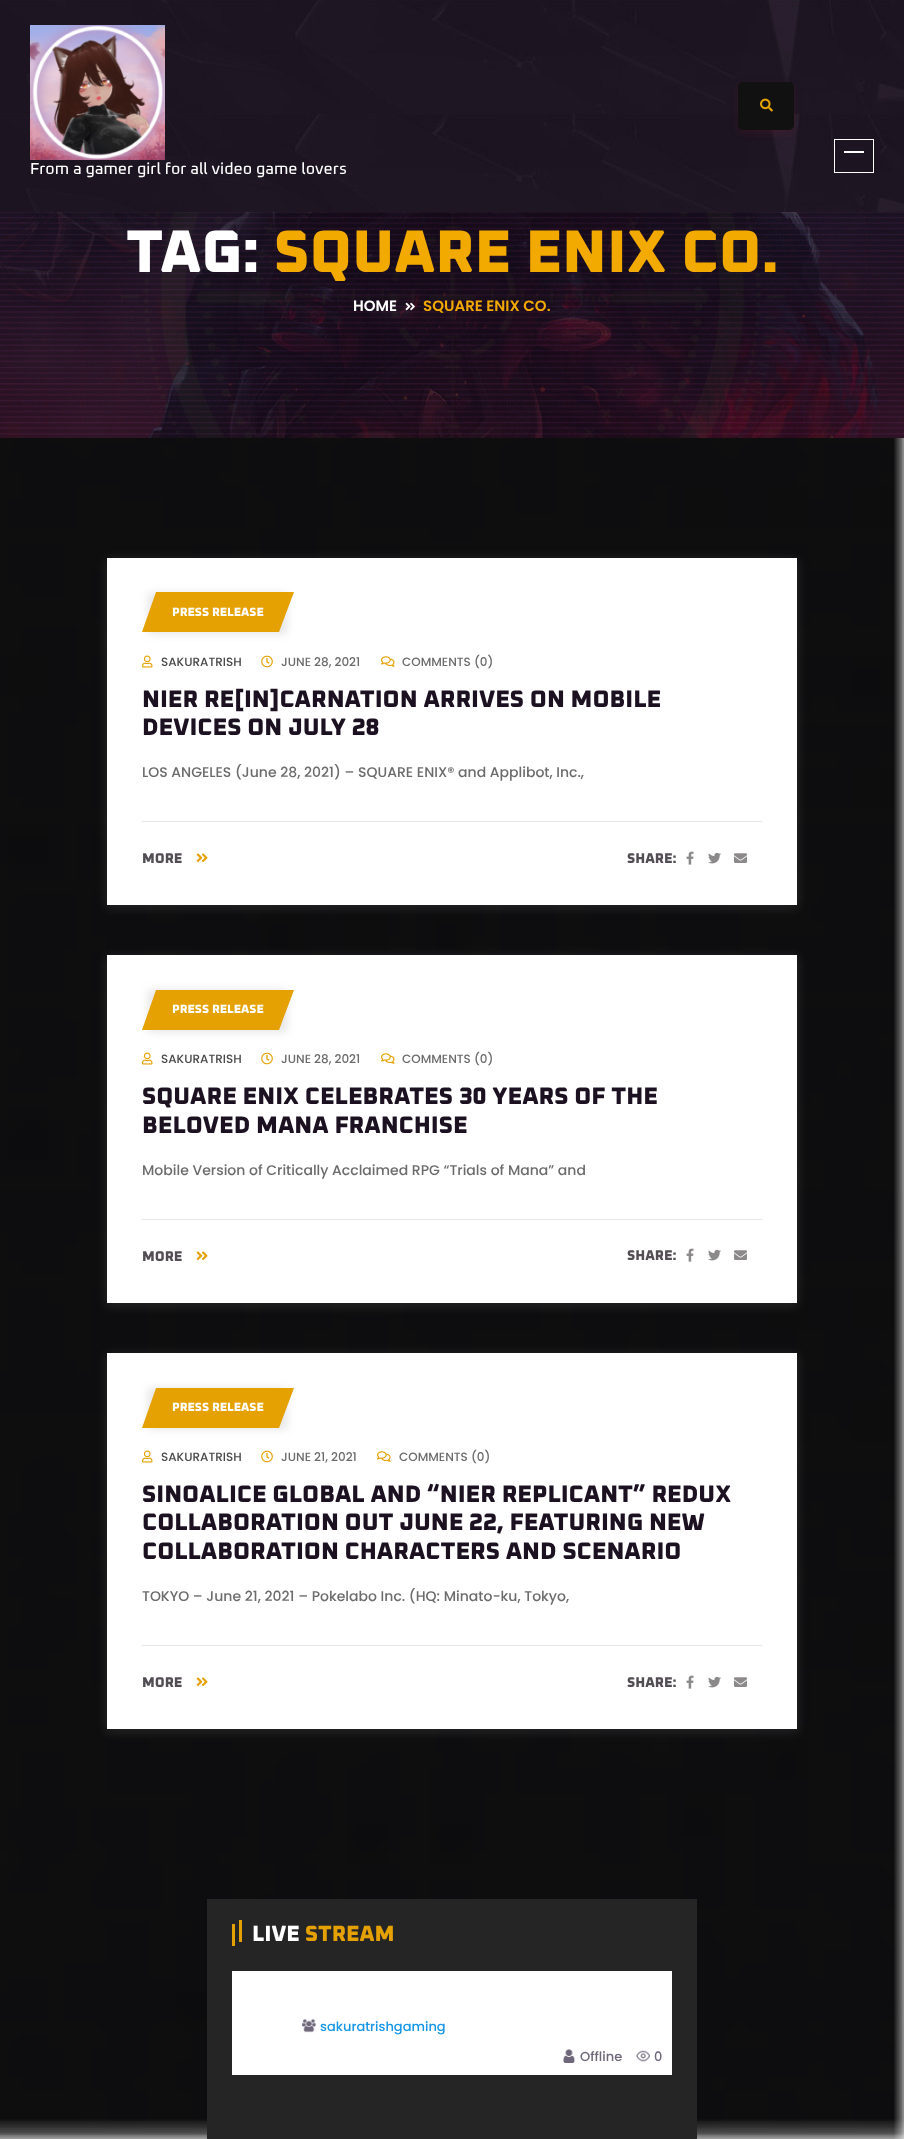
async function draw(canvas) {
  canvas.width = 904;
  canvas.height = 2139;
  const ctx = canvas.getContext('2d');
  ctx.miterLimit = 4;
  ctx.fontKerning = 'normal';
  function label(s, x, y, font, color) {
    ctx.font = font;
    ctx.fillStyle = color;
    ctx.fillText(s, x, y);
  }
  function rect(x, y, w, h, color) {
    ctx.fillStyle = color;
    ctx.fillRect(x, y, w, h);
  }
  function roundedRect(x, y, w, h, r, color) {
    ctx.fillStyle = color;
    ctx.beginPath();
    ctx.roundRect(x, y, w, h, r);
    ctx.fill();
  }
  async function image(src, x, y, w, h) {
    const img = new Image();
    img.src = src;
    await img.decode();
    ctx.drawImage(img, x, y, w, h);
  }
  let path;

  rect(0, 0, 904, 2139, '#fff');
  await image('assets/img1.png', 0, 438, 904, 1701);
  await image('assets/img2.png', 0, 0, 904, 212);
  ctx.fillStyle = '#80122833';
  ctx.filter = 'blur(3.5px)';
  ctx.beginPath();
  ctx.roundRect(738, 85, 56, 48, 5);
  ctx.fill();
  ctx.filter = 'none';
  roundedRect(738, 82, 56, 48, 5, '#111');
  await image('assets/img3.png', 760, 98, 13, 14);
  await image('assets/img4.png', 30, 25, 135, 135);
  label('From a gamer girl for all video game lovers', 30, 174, '500 16px Oxanium', '#fff');
  ctx.strokeStyle = '#fff';
  ctx.strokeRect(834.5, 139.5, 39, 33);
  rect(844, 151, 20, 2, '#fff');
  await image('assets/img5.png', 0, 212, 904, 226);
  label('TAG:', 126, 272, '800 60px Oxanium', '#fff');
  label('SQUARE ENIX CO.', 274, 272, '800 60px Oxanium', '#f2a900');
  label('HOME', 353, 311, '600 15px Poppins', '#fff');
  await image('assets/img6.png', 405, 302, 10, 9);
  label('SQUARE ENIX CO.', 423, 311, '600 15px Poppins', '#f2a900');
  ctx.fillStyle = '#b8b8b826';
  ctx.filter = 'blur(6px)';
  ctx.beginPath();
  ctx.rect(106, 559, 692, 349);
  ctx.fill();
  ctx.filter = 'none';
  rect(107, 558, 690, 347, '#fff');
  ctx.fillStyle = '#7271712e';
  ctx.filter = 'blur(4px)';
  ctx.beginPath();
  ctx.rect(148, 593, 139, 41);
  ctx.fill();
  ctx.filter = 'none';
  ctx.fillStyle = '#e4a101';
  path = new Path2D('M156 592H294L279 632H142Z');
  ctx.fill(path);
  label('PRESS RELEASE', 172, 616, '800 12px Oxanium', '#fff');
  await image('assets/img7.png', 142, 655, 11, 13);
  label('SAKURATRISH', 161, 666, '500 12px Poppins', '#494949');
  await image('assets/img8.png', 261, 655, 12, 13);
  label('JUNE 28, 2021', 281, 666, '500 12px Poppins', '#6c6c6c');
  await image('assets/img9.png', 381, 656, 14, 11);
  label('COMMENTS (0)', 402, 666, '500 12px Poppins', '#6c6c6c');
  label('NIER RE[IN]CARNATION ARRIVES ON MOBILE', 142, 707, '800 24px Oxanium', '#1c1121');
  label('DEVICES ON JULY 28', 142, 735, '800 24px Oxanium', '#1c1121');
  label('LOS ANGELES (June 28, 2021) – SQUARE ENIX® and Applibot, Inc.,', 142, 777, '500 14px Poppins', '#6c6c6c');
  rect(142, 821, 620, 1, '#e7e7e7');
  label('MORE', 142, 863, '800 14px Oxanium', '#524e54');
  await image('assets/img10.png', 196, 853, 12, 10);
  label('SHARE:', 627, 863, '800 14px Oxanium', '#524e54');
  await image('assets/img11.png', 686, 851, 8, 14);
  await image('assets/img12.png', 708, 852, 13, 12);
  await image('assets/img13.png', 734, 853, 13, 10);
  ctx.fillStyle = '#b8b8b826';
  ctx.filter = 'blur(6px)';
  ctx.beginPath();
  ctx.rect(106, 956, 692, 350);
  ctx.fill();
  ctx.filter = 'none';
  rect(107, 955, 690, 348, '#fff');
  ctx.fillStyle = '#7271712e';
  ctx.filter = 'blur(4px)';
  ctx.beginPath();
  ctx.rect(148, 990, 139, 42);
  ctx.fill();
  ctx.filter = 'none';
  ctx.fillStyle = '#e4a101';
  path = new Path2D('M156 990H294L279 1030H142Z');
  ctx.fill(path);
  label('PRESS RELEASE', 172, 1013, '800 12px Oxanium', '#fff');
  await image('assets/img7.png', 142, 1052, 11, 13);
  label('SAKURATRISH', 161, 1063, '500 12px Poppins', '#494949');
  await image('assets/img8.png', 261, 1052, 12, 13);
  label('JUNE 28, 2021', 281, 1063, '500 12px Poppins', '#6c6c6c');
  await image('assets/img9.png', 381, 1053, 14, 11);
  label('COMMENTS (0)', 402, 1063, '500 12px Poppins', '#6c6c6c');
  label('SQUARE ENIX CELEBRATES 30 YEARS OF THE', 142, 1104, '800 24px Oxanium', '#1c1121');
  label('BELOVED MANA FRANCHISE', 142, 1133, '800 24px Oxanium', '#1c1121');
  label('Mobile Version of Critically Acclaimed RPG “Trials of Mana” and', 142, 1175, '500 14px Poppins', '#6c6c6c');
  rect(142, 1219, 620, 1, '#e7e7e7');
  label('MORE', 142, 1261, '800 14px Oxanium', '#524e54');
  await image('assets/img10.png', 196, 1251, 12, 10);
  label('SHARE:', 627, 1260, '800 14px Oxanium', '#524e54');
  await image('assets/img11.png', 686, 1248, 8, 14);
  await image('assets/img12.png', 708, 1249, 13, 12);
  await image('assets/img13.png', 734, 1250, 13, 10);
  ctx.fillStyle = '#b8b8b826';
  ctx.filter = 'blur(6px)';
  ctx.beginPath();
  ctx.rect(106, 1354, 692, 378);
  ctx.fill();
  ctx.filter = 'none';
  rect(107, 1353, 690, 376, '#fff');
  ctx.fillStyle = '#7271712e';
  ctx.filter = 'blur(4px)';
  ctx.beginPath();
  ctx.rect(148, 1388, 139, 41);
  ctx.fill();
  ctx.filter = 'none';
  ctx.fillStyle = '#e4a101';
  path = new Path2D('M156 1388H294L279 1428H142Z');
  ctx.fill(path);
  label('PRESS RELEASE', 172, 1411, '800 12px Oxanium', '#fff');
  await image('assets/img7.png', 142, 1450, 11, 13);
  label('SAKURATRISH', 161, 1461, '500 12px Poppins', '#494949');
  await image('assets/img8.png', 261, 1450, 12, 13);
  label('JUNE 21, 2021', 281, 1461, '500 12px Poppins', '#6c6c6c');
  await image('assets/img9.png', 377, 1451, 14, 11);
  label('COMMENTS (0)', 399, 1461, '500 12px Poppins', '#6c6c6c');
  label('SINOALICE GLOBAL AND “NIER REPLICANT” REDUX', 142, 1502, '800 24px Oxanium', '#1c1121');
  label('COLLABORATION OUT JUNE 22, FEATURING NEW', 142, 1530, '800 24px Oxanium', '#1c1121');
  label('COLLABORATION CHARACTERS AND SCENARIO', 142, 1559, '800 24px Oxanium', '#1c1121');
  label('TOKYO – June 21, 2021 – Pokelabo Inc. (HQ: Minato-ku, Tokyo,', 142, 1601, '500 14px Poppins', '#6c6c6c');
  rect(142, 1645, 620, 1, '#e7e7e7');
  label('MORE', 142, 1687, '800 14px Oxanium', '#524e54');
  await image('assets/img10.png', 196, 1677, 12, 10);
  label('SHARE:', 627, 1687, '800 14px Oxanium', '#524e54');
  await image('assets/img11.png', 686, 1675, 8, 14);
  await image('assets/img12.png', 708, 1676, 13, 12);
  await image('assets/img13.png', 734, 1677, 13, 10);
  rect(207, 1899, 490, 240, '#252525');
  rect(232, 1924, 3, 22, '#e4a101');
  rect(239, 1920, 3, 22, '#e4a101');
  label('LIVE', 252, 1941, '800 22px Oxanium', '#fff');
  label('STREAM', 305, 1941, '800 22px Oxanium', '#e4a101');
  rect(232, 1971, 440, 104, '#fff');
  await image('assets/img14.png', 302, 2019, 14, 14);
  label('sakuratrishgaming', 320, 2031, '500 13px Poppins', '#1696e7');
  await image('assets/img15.png', 562, 2049, 13, 14);
  label('Offline', 580, 2061, '500 13px Poppins', '#6e6779');
  await image('assets/img16.png', 636, 2050, 14, 12);
  label('0', 654, 2061, '500 13px Poppins', '#6e6779');
}

draw(document.querySelector('canvas'));
